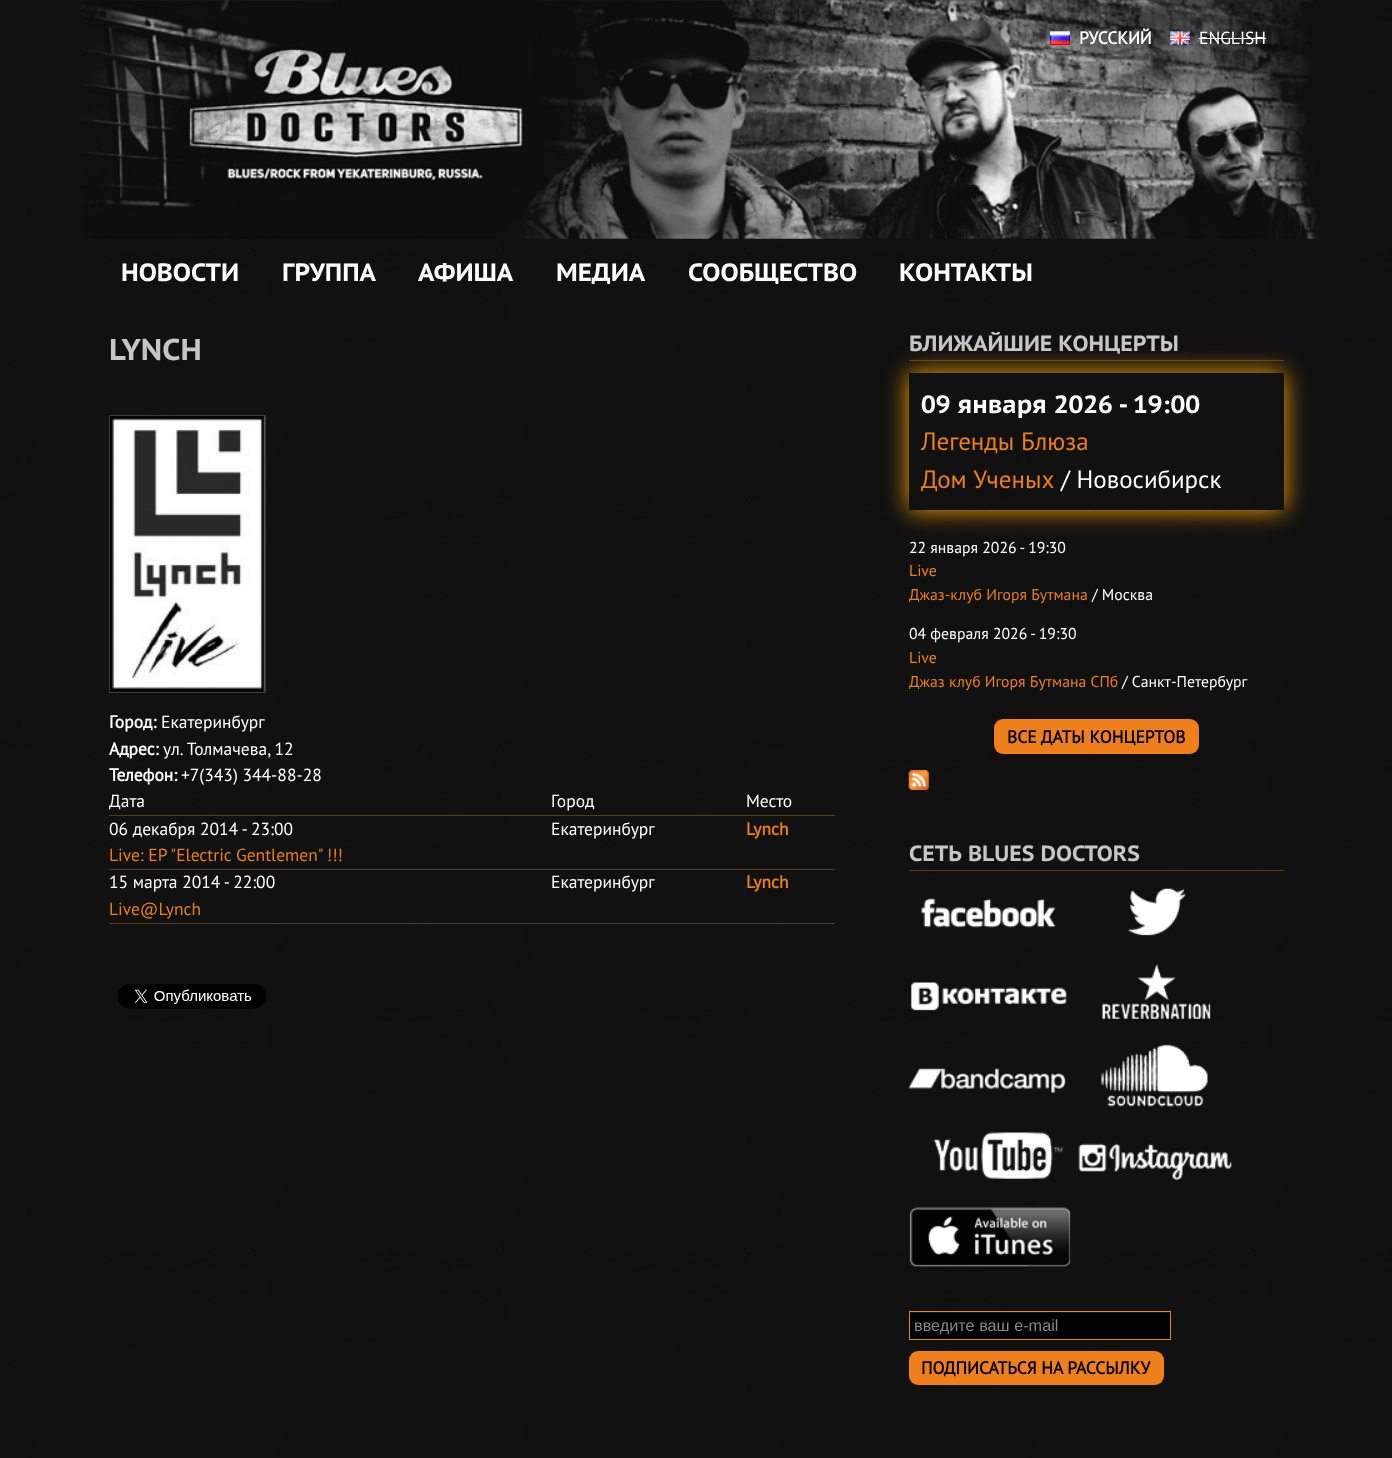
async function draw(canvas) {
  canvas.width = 1392;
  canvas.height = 1458;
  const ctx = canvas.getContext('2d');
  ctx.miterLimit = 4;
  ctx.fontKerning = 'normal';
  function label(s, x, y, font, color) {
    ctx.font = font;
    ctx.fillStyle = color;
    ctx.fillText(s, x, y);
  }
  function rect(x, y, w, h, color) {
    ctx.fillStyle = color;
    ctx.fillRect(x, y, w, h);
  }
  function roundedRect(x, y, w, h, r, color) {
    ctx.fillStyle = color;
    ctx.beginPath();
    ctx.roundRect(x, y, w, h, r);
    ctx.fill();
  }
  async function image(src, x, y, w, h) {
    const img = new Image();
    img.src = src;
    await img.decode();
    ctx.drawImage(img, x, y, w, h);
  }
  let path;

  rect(0, 0, 1392, 1458, '#fff');
  await image('assets/img1.png', 0, 0, 1392, 1458);
  await image('assets/img2.png', 81, 0, 1238, 239);
  await image('assets/img3.png', 1050, 31, 20, 14);
  label('РУССКИЙ', 1079, 44, 'bold 17.5px PT Sans', '#fff');
  await image('assets/img4.png', 1170, 31, 20, 14);
  label('ENGLISH', 1199, 44, '17.5px PT Sans', '#fff');
  rect(1199, 38, 67, 1, '#fff');
  label('НОВОСТИ', 121, 281, 'bold 25px PT Sans Caption', '#fff');
  label('ГРУППА', 282, 281, 'bold 25px PT Sans Caption', '#fff');
  label('АФИША', 418, 281, 'bold 25px PT Sans Caption', '#fff');
  label('МЕДИА', 556, 281, 'bold 25px PT Sans Caption', '#fff');
  label('СООБЩЕСТВО', 688, 281, 'bold 25px PT Sans Caption', '#fff');
  label('КОНТАКТЫ', 899, 281, 'bold 25px PT Sans Caption', '#fff');
  label('LYNCH', 109, 360, 'bold 30px PT Sans Caption', '#c5c6c6');
  ctx.strokeStyle = '#3a3a3a';
  ctx.strokeRect(109.5, 415.5, 156, 277);
  await image('assets/img5.png', 110, 416, 155, 276);
  label('Город:', 109, 728, 'bold 17.5px PT Sans', '#fff');
  label('Екатеринбург', 161, 728, '17.5px PT Sans', '#fff');
  label('Адрес:', 109, 755, 'bold 17.5px PT Sans', '#fff');
  label('ул. Толмачева, 12', 163, 755, '17.5px PT Sans', '#fff');
  label('Телефон:', 109, 781, 'bold 17.5px PT Sans', '#fff');
  label('+7(343) 344-88-28', 181, 781, '17.5px PT Sans', '#fff');
  rect(109, 815, 726, 1, '#59391d');
  label('Дата', 109, 807, '17.5px PT Sans', '#fff');
  label('Город', 551, 807, '17.5px PT Sans', '#fff');
  label('Место', 746, 807, '17.5px PT Sans', '#fff');
  rect(109, 869, 726, 1, '#59391d');
  label('06 декабря 2014 - 23:00', 109, 835, '17.5px PT Sans', '#fff');
  label('Live: EP "Electric Gentlemen" !!!', 109, 861, '17.5px PT Sans', '#ef7f1a');
  label('Екатеринбург', 551, 835, '17.5px PT Sans', '#fff');
  label('Lynch', 746, 835, 'bold 17.5px PT Sans', '#ef7f1a');
  rect(109, 923, 726, 1, '#59391d');
  label('15 марта 2014 - 22:00', 109, 888, '17.5px PT Sans', '#fff');
  label('Live@Lynch', 109, 915, '17.5px PT Sans', '#ef7f1a');
  label('Екатеринбург', 551, 888, '17.5px PT Sans', '#fff');
  label('Lynch', 746, 888, 'bold 17.5px PT Sans', '#ef7f1a');
  await image('assets/img6.png', 117, 984, 149, 25);
  rect(909, 360, 375, 1, '#59391d');
  ctx.save();
  path = new Path2D('M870 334H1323V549H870ZM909 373H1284V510H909Z');
  ctx.clip(path, 'evenodd');
  ctx.fillStyle = '#ffa500';
  ctx.filter = 'blur(12.5px)';
  ctx.beginPath();
  ctx.rect(909, 373, 375, 137);
  ctx.fill();
  ctx.filter = 'none';
  ctx.restore();
  label('БЛИЖАЙШИЕ КОНЦЕРТЫ', 909, 351, 'bold 22px PT Sans Caption', '#c5c6c6');
  label('09 января 2026 - 19:00', 921, 413, 'bold 25px PT Sans Caption', '#fff');
  label('Легенды Блюза', 921, 450, '25px PT Sans', '#ef7f1a');
  label('Дом Ученых', 921, 488, '25px PT Sans', '#ef7f1a');
  label('/ Новосибирск', 1061, 488, '25px PT Sans', '#fff');
  label('22 января 2026 - 19:30', 909, 553, '15.75px PT Sans', '#fff');
  label('Live', 909, 576, '15.75px PT Sans', '#ef7f1a');
  label('Джаз-клуб Игоря Бутмана', 909, 600, '15.75px PT Sans', '#ef7f1a');
  label('/ Москва', 1092, 600, '15.75px PT Sans', '#fff');
  label('04 февраля 2026 - 19:30', 909, 639, '15.75px PT Sans', '#fff');
  label('Live', 909, 663, '15.75px PT Sans', '#ef7f1a');
  label('Джаз клуб Игоря Бутмана СПб', 909, 687, '15.75px PT Sans', '#ef7f1a');
  label('/ Санкт-Петербург', 1122, 687, '15.75px PT Sans', '#fff');
  roundedRect(994, 719, 205, 35, 9, '#ef7f1a');
  label('ВСЕ ДАТЫ КОНЦЕРТОВ', 1007, 743, 'bold 17.5px PT Sans', '#000');
  await image('assets/img7.png', 908, 770, 21, 20);
  rect(909, 870, 375, 1, '#59391d');
  label('СЕТЬ BLUES DOCTORS', 909, 861, 'bold 22px PT Sans Caption', '#c5c6c6');
  await image('assets/img8.png', 921, 898, 135, 30);
  await image('assets/img9.png', 1128, 888, 58, 48);
  await image('assets/img10.png', 911, 982, 156, 29);
  await image('assets/img11.png', 1102, 964, 109, 55);
  await image('assets/img12.png', 908, 1068, 158, 25);
  await image('assets/img13.png', 1101, 1044, 107, 63);
  await image('assets/img14.png', 933, 1132, 130, 47);
  await image('assets/img15.png', 1078, 1143, 154, 38);
  await image('assets/img16.png', 909, 1207, 162, 60);
  rect(910, 1313, 260, 26, '#000');
  ctx.strokeStyle = '#ef7f1a';
  ctx.strokeRect(909.5, 1311.5, 261, 28);
  label('введите ваш e-mail', 914, 1331, '16.25px Liberation Sans', '#888');
  roundedRect(909, 1351, 255, 34, 9, '#ef7f1a');
  label('ПОДПИСАТЬСЯ НА РАССЫЛКУ', 921, 1374, 'bold 17.5px PT Sans', '#000');
}

draw(document.querySelector('canvas'));
